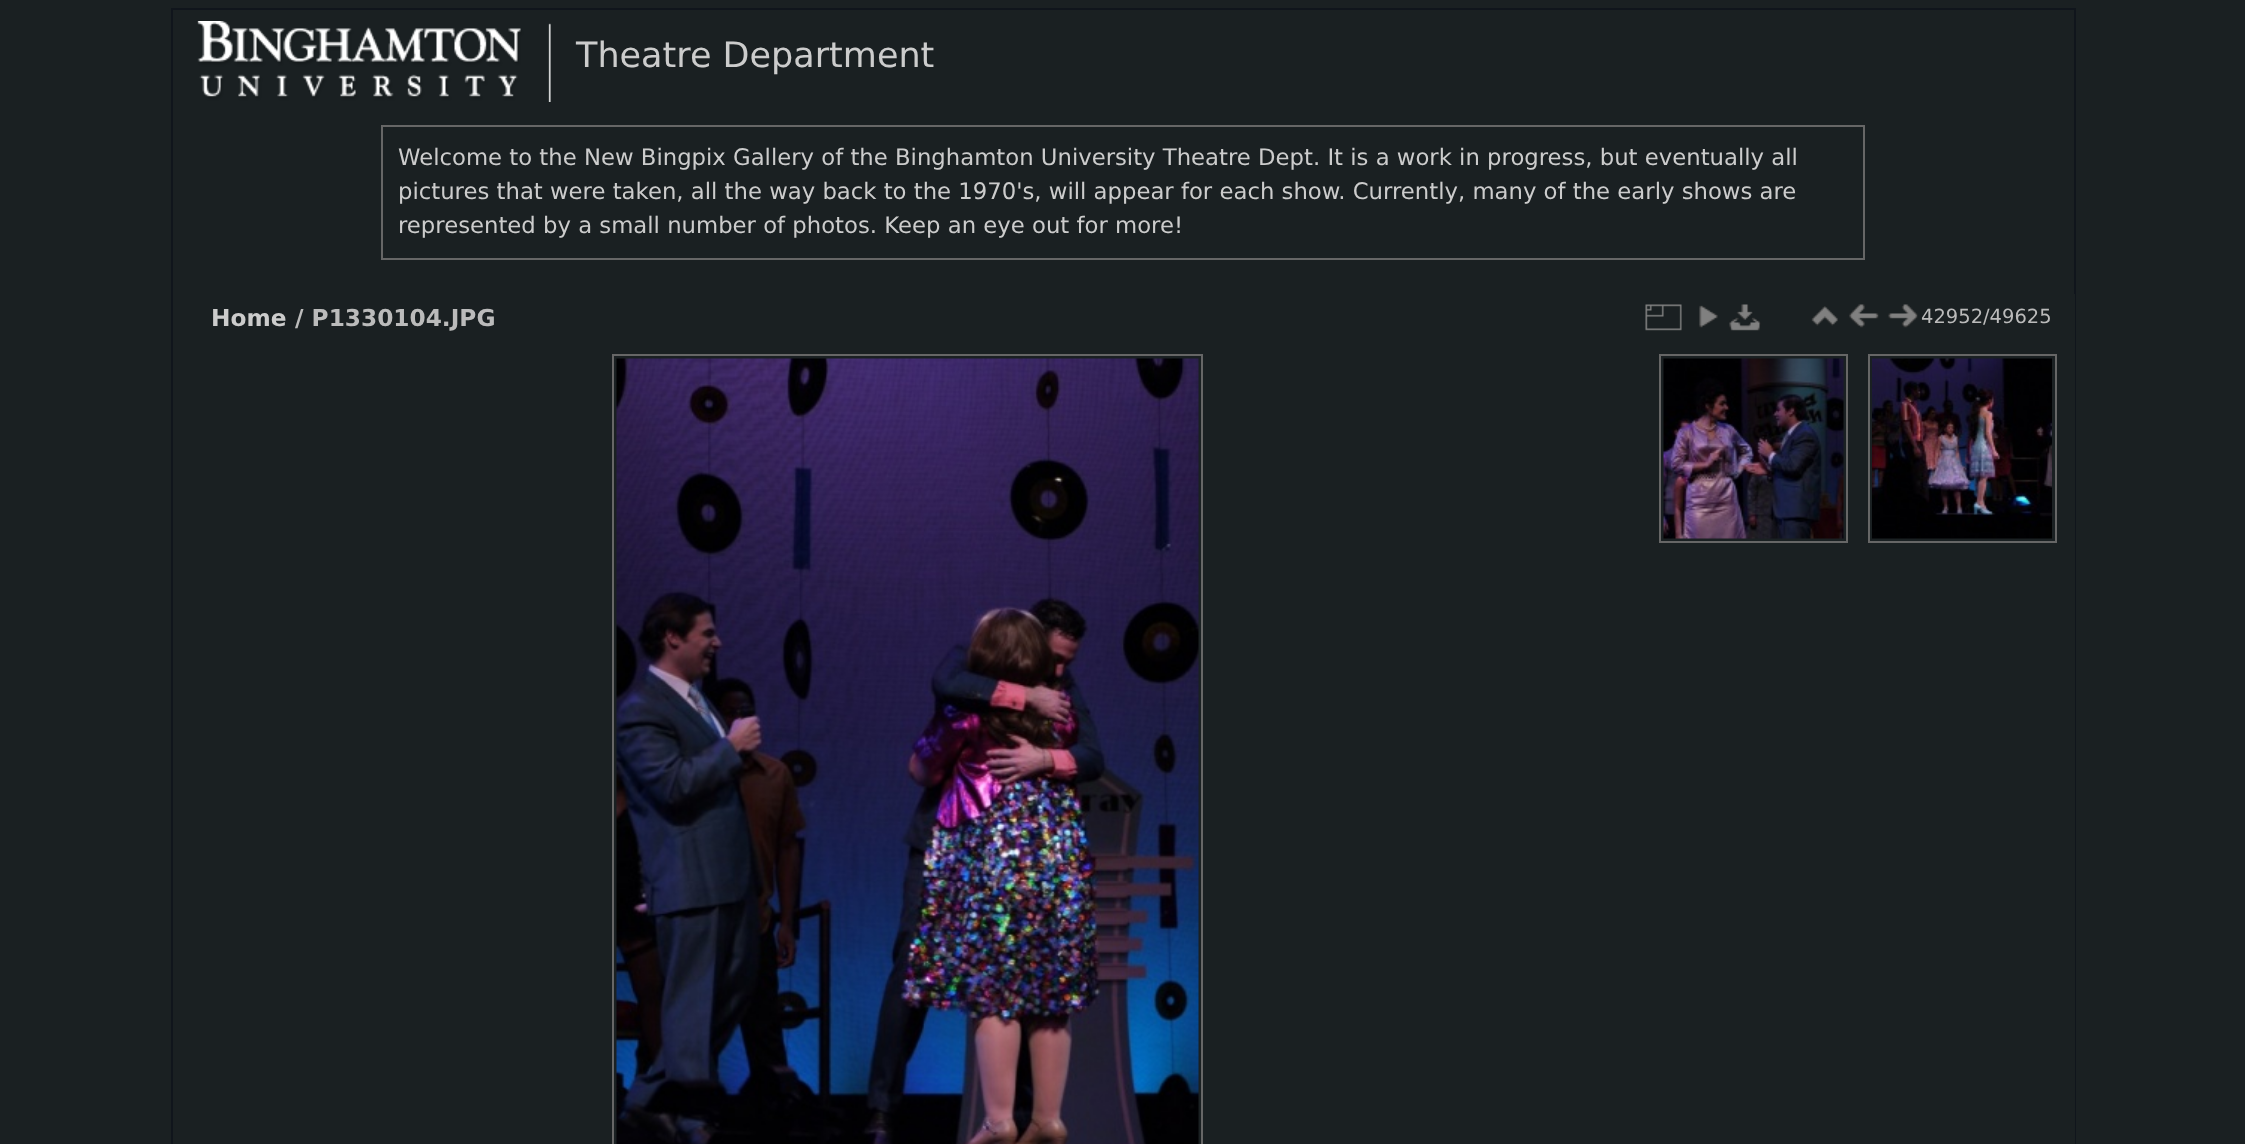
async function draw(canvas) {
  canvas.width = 2245;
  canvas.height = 1144;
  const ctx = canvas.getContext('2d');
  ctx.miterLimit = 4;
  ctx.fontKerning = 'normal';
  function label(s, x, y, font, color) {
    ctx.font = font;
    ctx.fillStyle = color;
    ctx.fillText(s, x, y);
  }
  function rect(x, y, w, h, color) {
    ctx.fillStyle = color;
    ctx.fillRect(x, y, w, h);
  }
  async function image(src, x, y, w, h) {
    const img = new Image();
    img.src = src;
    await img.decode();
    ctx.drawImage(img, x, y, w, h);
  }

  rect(0, 0, 2245, 1144, '#1a2022');
  ctx.strokeStyle = '#10151c';
  ctx.lineWidth = 2;
  ctx.strokeRect(172, 9, 1903, 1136);
  await image('assets/img1.png', 197, 21, 354, 81);
  label('Theatre Department', 576, 67, '35px DejaVu Sans', '#ccc');
  ctx.strokeStyle = '#666';
  ctx.strokeRect(382, 126, 1482, 133);
  label('Welcome to the New Bingpix Gallery of the Binghamton University Theatre Dept. It is a work in progress, but eventually all', 398, 165, '22.75px DejaVu Sans', '#ccc');
  label('pictures that were taken, all the way back to the 1970\'s, will appear for each show. Currently, many of the early shows are', 398, 199, '22.75px DejaVu Sans', '#ccc');
  label('represented by a small number of photos. Keep an eye out for more!', 398, 233, '22.75px DejaVu Sans', '#ccc');
  rect(2074, 294, 1, 850, '#1a2022');
  label('Home', 211, 326, 'bold 23.25px DejaVu Sans', '#ccc');
  label('/ P1330104.JPG', 295, 326, 'bold 23.25px DejaVu Sans', '#bbb');
  await image('assets/img2.png', 1645, 304, 37, 27);
  await image('assets/img3.png', 1699, 305, 19, 23);
  await image('assets/img4.png', 1729, 304, 32, 27);
  await image('assets/img5.png', 1811, 306, 27, 20);
  await image('assets/img6.png', 1849, 304, 30, 24);
  await image('assets/img7.png', 1888, 304, 30, 24);
  label('42952/49625', 1921, 323, '19.5px DejaVu Sans', '#bbb');
  ctx.strokeRect(613, 355, 589, 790);
  ctx.strokeRect(1660, 355, 187, 187);
  await image('assets/img8.png', 1663, 358, 181, 181);
  ctx.strokeRect(1869, 355, 187, 187);
  await image('assets/img9.png', 1872, 358, 180, 181);
  await image('assets/img10.png', 616, 358, 583, 786);
}

draw(document.querySelector('canvas'));
